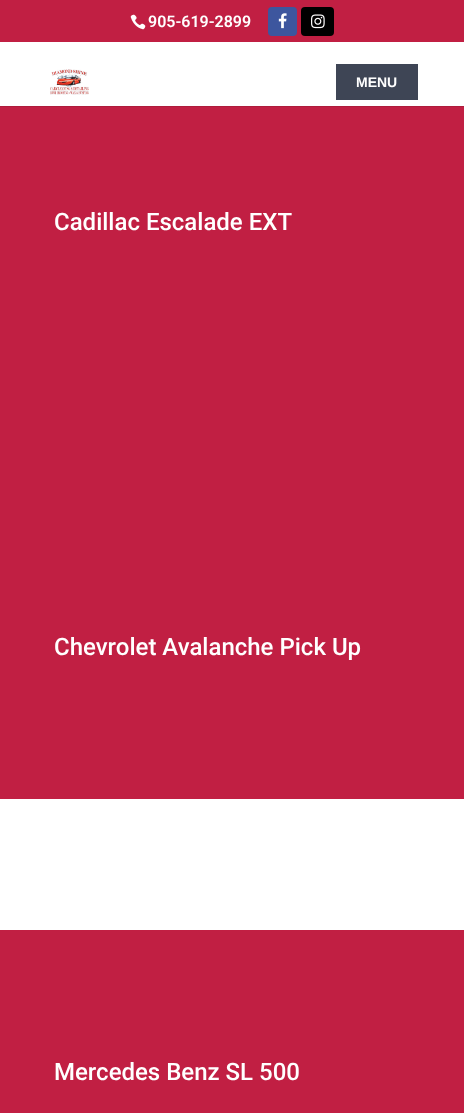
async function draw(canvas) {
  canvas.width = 464;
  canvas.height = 1113;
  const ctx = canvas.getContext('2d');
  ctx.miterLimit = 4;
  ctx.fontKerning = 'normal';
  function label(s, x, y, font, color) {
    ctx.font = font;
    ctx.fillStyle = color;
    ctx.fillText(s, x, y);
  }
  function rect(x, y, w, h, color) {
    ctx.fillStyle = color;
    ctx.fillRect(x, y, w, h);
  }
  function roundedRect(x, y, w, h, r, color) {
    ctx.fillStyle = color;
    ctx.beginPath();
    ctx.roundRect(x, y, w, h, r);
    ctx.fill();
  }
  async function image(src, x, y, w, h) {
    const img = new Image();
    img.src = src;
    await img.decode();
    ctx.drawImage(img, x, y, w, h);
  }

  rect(0, 0, 464, 1113, '#fff');
  rect(0, 0, 464, 42, '#c11f43');
  await image('assets/img1.png', 130, 14, 16, 16);
  label('905-619-2899', 148, 27, '600 16px Roboto', '#fff');
  roundedRect(268, 7, 29, 29, 4, '#3d569e');
  await image('assets/img2.png', 278, 13, 9, 16);
  roundedRect(301, 7, 33, 29, 4, '#000');
  await image('assets/img3.png', 311, 14, 14, 15);
  rect(0, 106, 464, 1, '#ae1c3c');
  await image('assets/img4.png', 50, 69, 39, 26);
  rect(336, 64, 82, 36, '#3e4555');
  label('MENU', 356, 87, 'bold 14px Liberation Sans', '#fff');
  rect(0, 107, 464, 692, '#c11f43');
  label('Cadillac Escalade EXT', 54, 230, '500 24px Roboto', '#fff');
  label('Chevrolet Avalanche Pick Up', 54, 655, '500 24px Roboto', '#fff');
  rect(0, 930, 464, 183, '#c11f43');
  label('Mercedes Benz SL 500', 54, 1080, '500 24px Roboto', '#fff');
}

draw(document.querySelector('canvas'));
